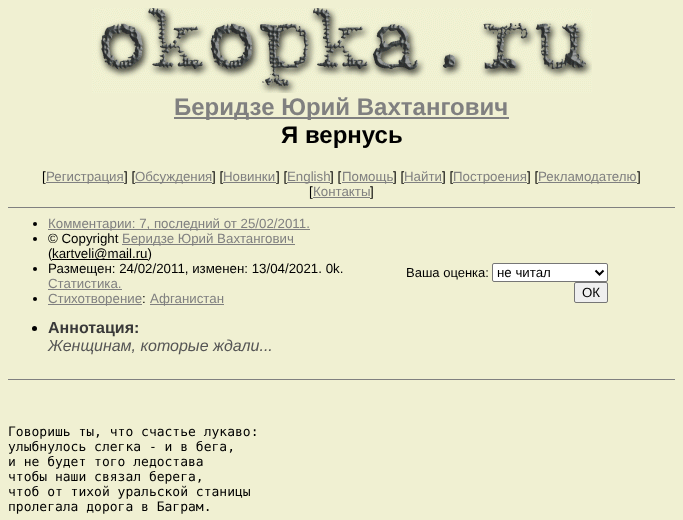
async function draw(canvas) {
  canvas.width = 683;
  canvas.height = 520;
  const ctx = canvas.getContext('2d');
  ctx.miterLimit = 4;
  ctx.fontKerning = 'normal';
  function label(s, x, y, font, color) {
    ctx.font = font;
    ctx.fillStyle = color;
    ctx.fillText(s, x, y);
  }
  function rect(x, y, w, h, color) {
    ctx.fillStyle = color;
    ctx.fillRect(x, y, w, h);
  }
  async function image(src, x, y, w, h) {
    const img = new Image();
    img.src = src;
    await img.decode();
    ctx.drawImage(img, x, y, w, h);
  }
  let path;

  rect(0, 0, 683, 520, '#f0f0d2');
  await image('assets/img1.png', 92, 8, 500, 85);
  rect(174, 117, 335, 2, '#808080');
  label('Беридзе Юрий Вахтангович', 174, 115, 'bold 24px Liberation Sans', '#808080');
  label('Я вернусь', 281, 143, 'bold 24px Liberation Sans', '#000');
  label('[', 42, 181, '13.3px Liberation Sans', '#000');
  rect(46, 182, 78, 1, '#808080');
  label('Регистрация', 46, 181, '13.3px Liberation Sans', '#808080');
  label('] [', 124, 181, '13.3px Liberation Sans', '#000');
  rect(135, 182, 77, 1, '#808080');
  label('Обсуждения', 135, 181, '13.3px Liberation Sans', '#808080');
  label('] [', 212, 181, '13.3px Liberation Sans', '#000');
  rect(223, 182, 53, 1, '#808080');
  label('Новинки', 223, 181, '13.3px Liberation Sans', '#808080');
  label('] [', 276, 181, '13.3px Liberation Sans', '#000');
  rect(287, 182, 43, 1, '#808080');
  label('English', 287, 181, '13.3px Liberation Sans', '#808080');
  label('] [', 330, 181, '13.3px Liberation Sans', '#000');
  rect(342, 182, 51, 1, '#808080');
  label('Помощь', 342, 181, '13.3px Liberation Sans', '#808080');
  label('] [', 393, 181, '13.3px Liberation Sans', '#000');
  rect(404, 182, 38, 1, '#808080');
  label('Найти', 404, 181, '13.3px Liberation Sans', '#808080');
  label('] [', 442, 181, '13.3px Liberation Sans', '#000');
  rect(453, 182, 74, 1, '#808080');
  label('Построения', 453, 181, '13.3px Liberation Sans', '#808080');
  label('] [', 527, 181, '13.3px Liberation Sans', '#000');
  rect(538, 182, 99, 1, '#808080');
  label('Рекламодателю', 538, 181, '13.3px Liberation Sans', '#808080');
  label(']', 637, 181, '13.3px Liberation Sans', '#000');
  label('[', 309, 196, '13.3px Liberation Sans', '#000');
  rect(313, 197, 57, 1, '#808080');
  label('Контакты', 313, 196, '13.3px Liberation Sans', '#808080');
  label(']', 370, 196, '13.3px Liberation Sans', '#000');
  rect(8, 207, 667, 1, '#808080');
  ctx.fillStyle = '#000';
  ctx.beginPath();
  ctx.arc(35, 224, 2, 0, 2 * Math.PI);
  ctx.fill();
  rect(48, 229, 262, 1, '#808080');
  label('Комментарии: 7, последний от 25/02/2011.', 48, 228, '13.3px Liberation Sans', '#808080');
  ctx.fillStyle = '#000';
  ctx.beginPath();
  ctx.arc(35, 239, 2, 0, 2 * Math.PI);
  ctx.fill();
  label('© Copyright', 48, 243, '13.3px Liberation Sans', '#000');
  rect(122, 244, 173, 1, '#808080');
  label('Беридзе Юрий Вахтангович', 122, 243, '13.3px Liberation Sans', '#808080');
  label('(', 48, 258, '13.3px Liberation Sans', '#000');
  rect(52, 259, 96, 1, '#000');
  label('kartveli@mail.ru)', 52, 258, '13.3px Liberation Sans', '#000');
  ctx.beginPath();
  ctx.arc(35, 269, 2, 0, 2 * Math.PI);
  ctx.fill();
  label('Размещен: 24/02/2011, изменен: 13/04/2021. 0k.', 48, 273, '13.3px Liberation Sans', '#000');
  label('Статистика.', 48, 288, '13.3px Liberation Sans', '#808080');
  rect(48, 289, 74, 1, '#808080');
  ctx.fillStyle = '#000';
  ctx.beginPath();
  ctx.arc(35, 299, 2, 0, 2 * Math.PI);
  ctx.fill();
  rect(48, 304, 94, 1, '#808080');
  label('Стихотворение', 48, 303, '13.3px Liberation Sans', '#808080');
  label(':', 142, 303, '13.3px Liberation Sans', '#000');
  rect(150, 304, 74, 1, '#808080');
  label('Афганистан', 150, 303, '13.3px Liberation Sans', '#808080');
  label('Ваша оценка:', 406, 277, '13px Liberation Sans', '#000');
  ctx.fillStyle = '#fff';
  ctx.beginPath();
  ctx.roundRect(492.5, 263.5, 115, 18, 1.5);
  ctx.fill();
  ctx.strokeStyle = '#767676';
  ctx.stroke();
  path = new Path2D('M595.5 270.5L599.5 274.5L603.5 270.5');
  ctx.strokeStyle = '#000';
  ctx.lineWidth = 2;
  ctx.stroke(path);
  label('не читал', 497, 277, '13.3px Liberation Sans', '#000');
  ctx.fillStyle = '#efefef';
  ctx.beginPath();
  ctx.roundRect(574.5, 282.5, 33, 20, 1.5);
  ctx.fill();
  ctx.strokeStyle = '#767676';
  ctx.lineWidth = 1;
  ctx.stroke();
  label('ОК', 582, 297, '13.3px Liberation Sans', '#000');
  ctx.beginPath();
  ctx.arc(34.5, 328.5, 2.5, 0, 2 * Math.PI);
  ctx.fill();
  label('Аннотация:', 48, 333, 'bold 16px Liberation Sans', '#393939');
  label('Женщинам, которые ждали...', 48, 351, 'italic 16px Liberation Sans', '#555');
  rect(8, 379, 667, 1, '#808080');
  label('Говоришь ты, что счастье лукаво:', 8, 436, '13px DejaVu Sans Mono', '#000');
  label('улыбнулось слегка - и в бега,', 8, 451, '13px DejaVu Sans Mono', '#000');
  label('и не будет того ледостава', 8, 466, '13px DejaVu Sans Mono', '#000');
  label('чтобы наши связал берега,', 8, 481, '13px DejaVu Sans Mono', '#000');
  label('чтоб от тихой уральской станицы', 8, 496, '13px DejaVu Sans Mono', '#000');
  label('пролегала дорога в Баграм.', 8, 511, '13px DejaVu Sans Mono', '#000');
}

draw(document.querySelector('canvas'));
